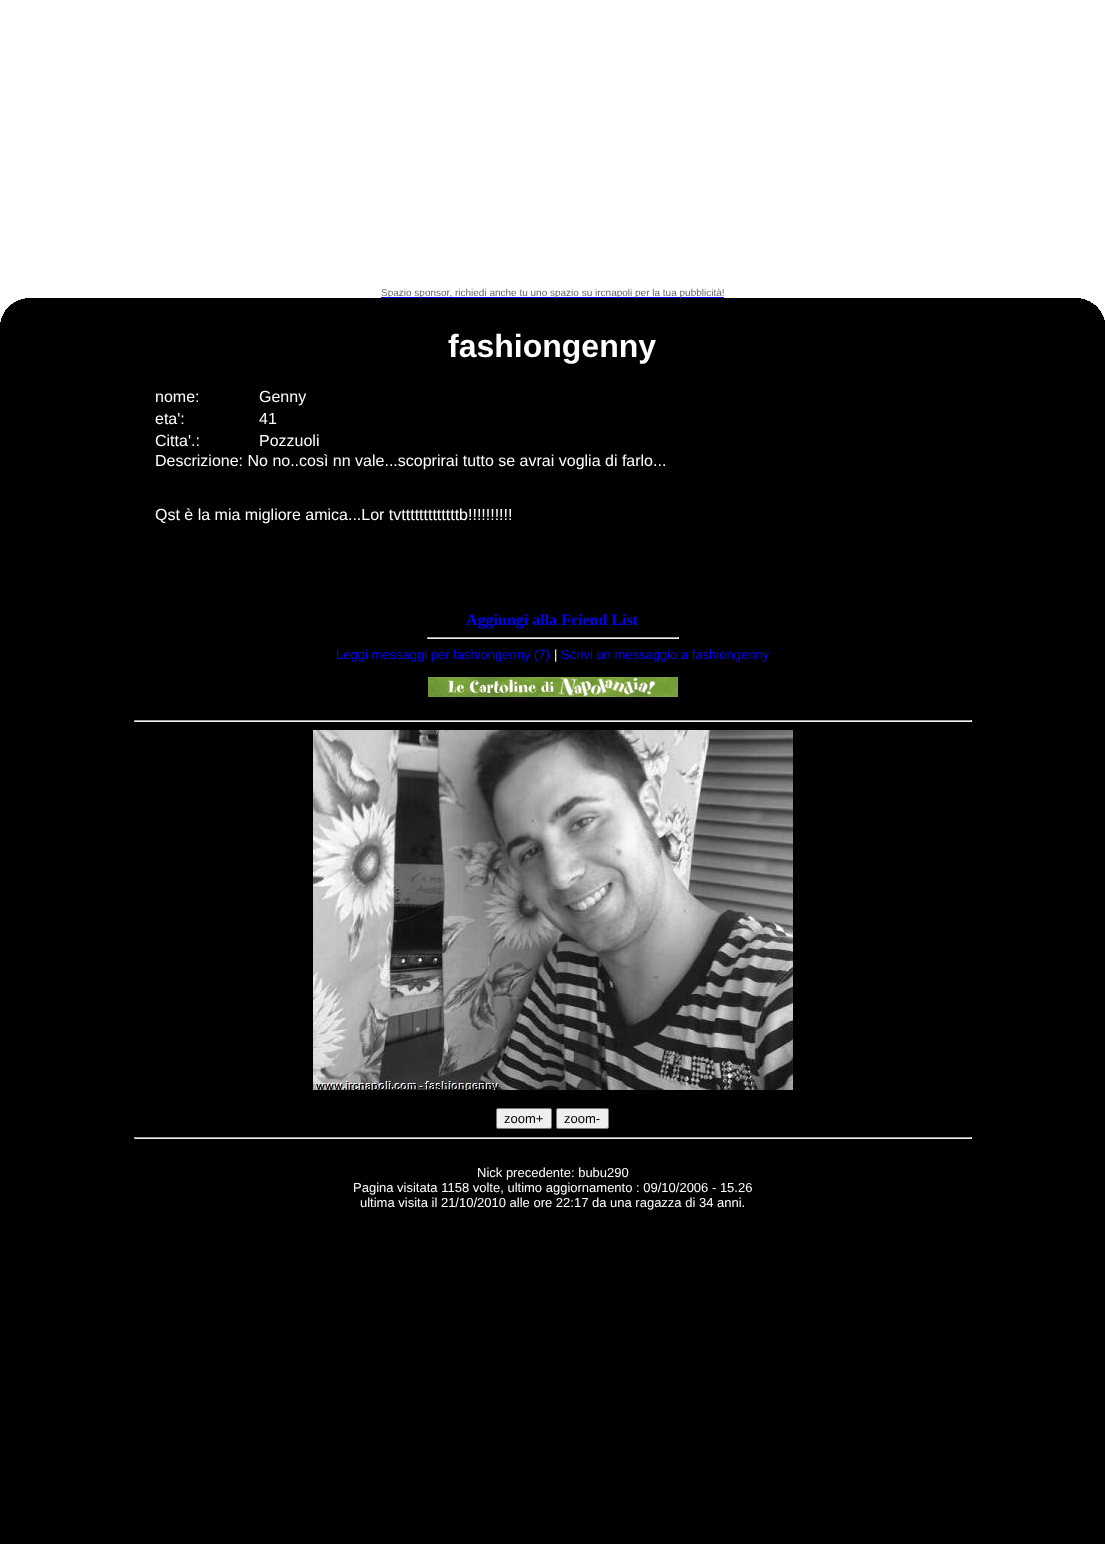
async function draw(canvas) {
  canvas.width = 1105;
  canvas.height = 1544;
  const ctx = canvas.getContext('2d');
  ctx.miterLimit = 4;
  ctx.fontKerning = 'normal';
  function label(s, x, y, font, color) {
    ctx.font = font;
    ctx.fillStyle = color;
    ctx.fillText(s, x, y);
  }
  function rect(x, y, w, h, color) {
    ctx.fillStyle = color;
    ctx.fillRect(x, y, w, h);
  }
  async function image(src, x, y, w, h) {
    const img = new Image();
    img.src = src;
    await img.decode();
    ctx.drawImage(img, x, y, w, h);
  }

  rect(0, 0, 1105, 1544, '#000');
  rect(0, 0, 1105, 298, '#fff');
  rect(381, 297, 343, 1, '#00f');
  label('Spazio sponsor, richiedi anche tu uno spazio su ircnapoli per la tua pubblicità!', 381, 296, '10px Liberation Sans', '#666');
  await image('assets/img1.png', 0, 298, 25, 24);
  await image('assets/img2.png', 1081, 298, 24, 22);
  label('fashiongenny', 448, 357, 'bold 32px Liberation Sans', '#fff');
  label('nome:', 155, 402, '16px Liberation Sans', '#fff');
  label('Genny', 259, 402, '16px Liberation Sans', '#fff');
  label('eta\':', 155, 424, '16px Liberation Sans', '#fff');
  label('41', 259, 424, '16px Liberation Sans', '#fff');
  label('Citta\'.:', 155, 446, '16px Liberation Sans', '#fff');
  label('Pozzuoli', 259, 446, '16px Liberation Sans', '#fff');
  label('Descrizione: No no..così nn vale...scoprirai tutto se avrai voglia di farlo...', 155, 466, '16px Liberation Sans', '#fff');
  label('Qst è la mia migliore amica...Lor tvtttttttttttttb!!!!!!!!!!', 155, 520, '16px Liberation Sans', '#fff');
  label('Aggiungi alla Friend List', 466, 625, 'bold 16px Liberation Serif', '#00f');
  rect(427, 637, 252, 1, '#9f9f9f');
  rect(678, 637, 1, 2, '#eee');
  rect(427, 638, 252, 1, '#eee');
  rect(427, 637, 1, 2, '#9f9f9f');
  label('Leggi messaggi per fashiongenny (7)', 336, 659, '13px Liberation Sans', '#00f');
  label('|', 554, 659, '13px Liberation Sans', '#fff');
  label('Scrivi un messaggio a fashiongenny', 561, 659, '13px Liberation Sans', '#00f');
  await image('assets/img3.png', 428, 677, 250, 20);
  rect(134, 720, 838, 1, '#9f9f9f');
  rect(971, 720, 1, 2, '#eee');
  rect(134, 721, 838, 1, '#eee');
  rect(134, 720, 1, 2, '#9f9f9f');
  await image('assets/img4.png', 313, 730, 480, 360);
  ctx.fillStyle = '#efefef';
  ctx.beginPath();
  ctx.roundRect(496.5, 1108.5, 55, 20, 1.5);
  ctx.fill();
  ctx.strokeStyle = '#767676';
  ctx.stroke();
  label('zoom+', 504, 1123, '13px Liberation Sans', '#000');
  ctx.fillStyle = '#efefef';
  ctx.beginPath();
  ctx.roundRect(556.5, 1108.5, 52, 20, 1.5);
  ctx.fill();
  ctx.stroke();
  label('zoom-', 564, 1123, '13px Liberation Sans', '#000');
  rect(134, 1137, 838, 1, '#9f9f9f');
  rect(971, 1137, 1, 2, '#eee');
  rect(134, 1138, 838, 1, '#eee');
  rect(134, 1137, 1, 2, '#9f9f9f');
  label('Nick precedente: bubu290', 477, 1177, '13px Liberation Sans', '#fff');
  label('Pagina visitata 1158 volte, ultimo aggiornamento : 09/10/2006 - 15.26', 353, 1192, '13px Liberation Sans', '#fff');
  label('ultima visita il 21/10/2010 alle ore 22:17 da una ragazza di 34 anni.', 360, 1207, '13px Liberation Sans', '#fff');
}

draw(document.querySelector('canvas'));
